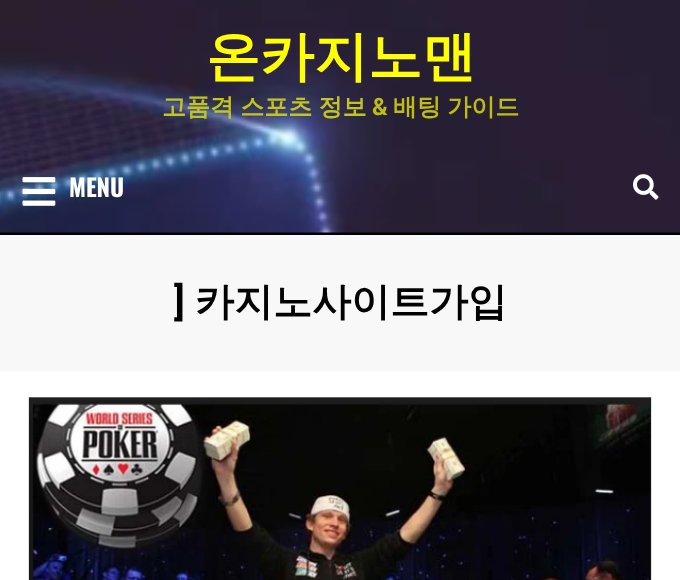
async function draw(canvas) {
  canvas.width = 680;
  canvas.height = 580;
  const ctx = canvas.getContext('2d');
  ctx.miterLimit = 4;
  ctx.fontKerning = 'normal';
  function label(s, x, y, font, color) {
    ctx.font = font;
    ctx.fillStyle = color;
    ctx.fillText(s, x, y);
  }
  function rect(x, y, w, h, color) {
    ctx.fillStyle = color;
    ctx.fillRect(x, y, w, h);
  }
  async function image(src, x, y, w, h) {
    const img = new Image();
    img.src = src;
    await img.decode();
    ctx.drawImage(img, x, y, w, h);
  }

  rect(0, 0, 680, 580, '#fff');
  rect(0, 232, 680, 3, '#020202');
  await image('assets/img1.png', 0, 0, 680, 233);
  label('온카지노맨', 206, 75, 'bold 54px WenQuanYi Zen Hei', '#ff0');
  ctx.wordSpacing = '-1px';
  label('고품격 스포츠 정보', 162, 115, 'bold 24px WenQuanYi Zen Hei', '#c3c41d');
  ctx.wordSpacing = '0px';
  label('&', 372, 115, 'bold 24px Roboto', '#bfbd11');
  ctx.wordSpacing = '-1px';
  label('배팅 가이드', 393, 115, 'bold 24px WenQuanYi Zen Hei', '#bfbd11');
  await image('assets/img2.png', 22, 177, 34, 29);
  ctx.wordSpacing = '0px';
  label('MENU', 69, 197, 'bold 24px Oswald', '#fff');
  await image('assets/img3.png', 633, 174, 26, 26);
  rect(0, 235, 680, 136, '#f8f8f8');
  label(']', 174, 315, 'bold 39px Roboto', '#020202');
  label('카지노사이트가입', 195, 315, 'bold 39px WenQuanYi Zen Hei', '#020202');
  await image('assets/img4.png', 28, 397, 624, 183);
}

draw(document.querySelector('canvas'));
